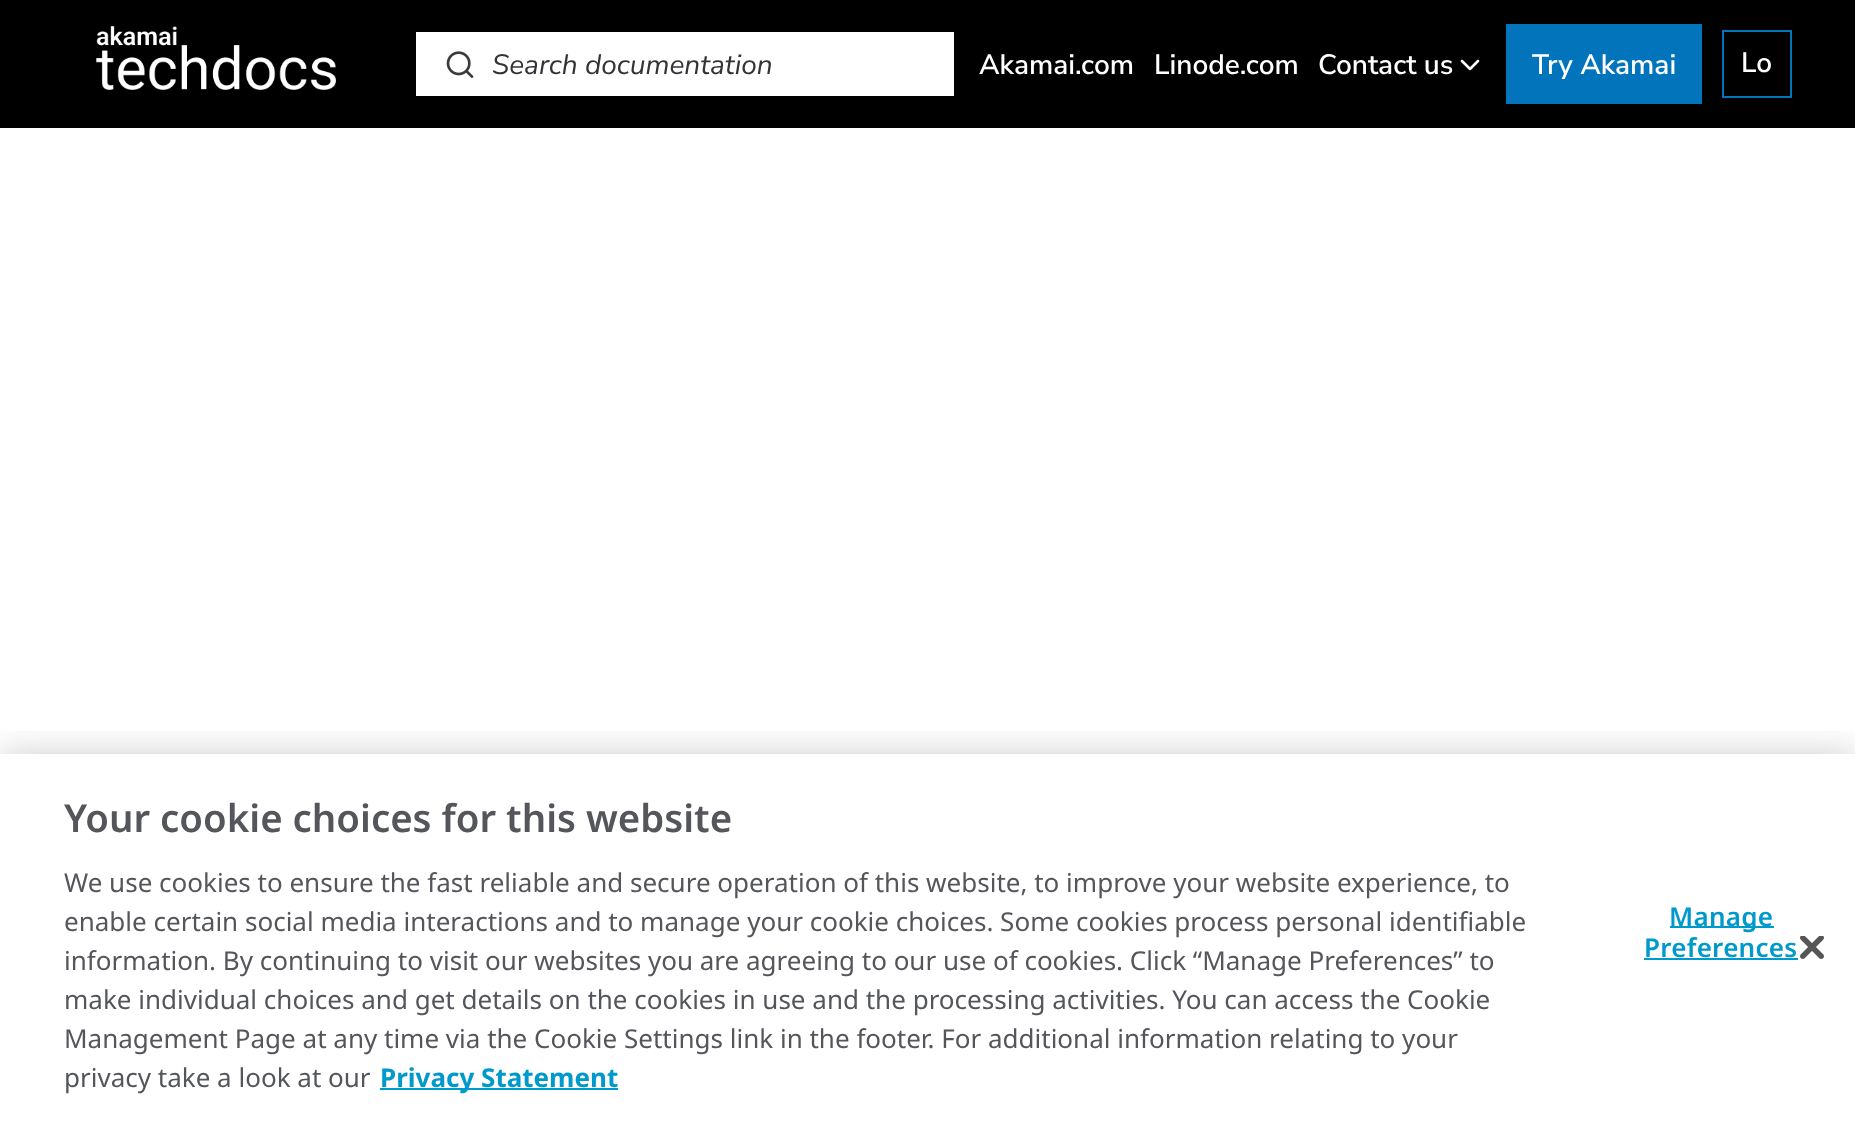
async function draw(canvas) {
  canvas.width = 1855;
  canvas.height = 1144;
  const ctx = canvas.getContext('2d');
  ctx.miterLimit = 4;
  ctx.fontKerning = 'normal';
  function label(s, x, y, font, color) {
    ctx.font = font;
    ctx.fillStyle = color;
    ctx.fillText(s, x, y);
  }
  function rect(x, y, w, h, color) {
    ctx.fillStyle = color;
    ctx.fillRect(x, y, w, h);
  }
  async function image(src, x, y, w, h) {
    const img = new Image();
    img.src = src;
    await img.decode();
    ctx.drawImage(img, x, y, w, h);
  }

  rect(0, 0, 1855, 1144, '#fff');
  rect(0, 0, 1855, 128, '#000');
  await image('assets/img1.png', 96, 26, 240, 64);
  rect(416, 32, 538, 64, '#fff');
  await image('assets/img2.png', 446, 51, 28, 27);
  label('Search documentation', 492, 74, 'italic 28px Nunito Sans', '#343438');
  label('Akamai.com', 979, 74, '600 28px Nunito Sans', '#fff');
  label('Linode.com', 1154, 74, '600 28px Nunito Sans', '#fff');
  label('Contact us', 1318, 74, '600 28px Nunito Sans', '#fff');
  await image('assets/img3.png', 1460, 59, 20, 12);
  rect(1506, 24, 196, 80, '#0174bc');
  label('Try Akamai', 1532, 74, '600 28px Nunito Sans', '#fff');
  ctx.strokeStyle = '#0174bc';
  ctx.lineWidth = 2;
  ctx.strokeRect(1723, 31, 68, 66);
  label('Lo', 1741, 72, '600 28px Nunito Sans', '#fff');
  ctx.save();
  ctx.beginPath();
  ctx.rect(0, 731, 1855, 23);
  ctx.clip();
  ctx.fillStyle = '#00000033';
  ctx.filter = 'blur(18px)';
  ctx.beginPath();
  ctx.rect(0, 754, 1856, 390);
  ctx.fill();
  ctx.filter = 'none';
  ctx.restore();
  label('Your cookie choices for this website', 64, 832, '600 38.4px Noto Sans', '#54565b');
  label('We use cookies to ensure the fast reliable and secure operation of this website, to improve your website experience, to', 64, 892, '26.02px Noto Sans', '#54565b');
  label('enable certain social media interactions and to manage your cookie choices. Some cookies process personal identifiable', 64, 931, '26.02px Noto Sans', '#54565b');
  label('information. By continuing to visit our websites you are agreeing to our use of cookies. Click “Manage Preferences” to', 64, 970, '26.02px Noto Sans', '#54565b');
  label('make individual choices and get details on the cookies in use and the processing activities. You can access the Cookie', 64, 1009, '26.02px Noto Sans', '#54565b');
  label('Management Page at any time via the Cookie Settings link in the footer. For additional information relating to your', 64, 1048, '26.02px Noto Sans', '#54565b');
  label('privacy take a look at our', 64, 1087, '26.02px Noto Sans', '#54565b');
  rect(380, 1088, 238, 2, '#09c');
  label('Privacy Statement', 380, 1087, 'bold 26.02px Noto Sans', '#09c');
  rect(1670, 926, 104, 2, '#09c');
  ctx.letterSpacing = '0.25px';
  label('Manage', 1669, 926, '600 26.02px Noto Sans', '#09c');
  label('Preferences', 1644, 957, '600 26.02px Noto Sans', '#09c');
  rect(1644, 958, 154, 2, '#09c');
  await image('assets/img4.png', 1800, 936, 24, 23);
}

draw(document.querySelector('canvas'));
